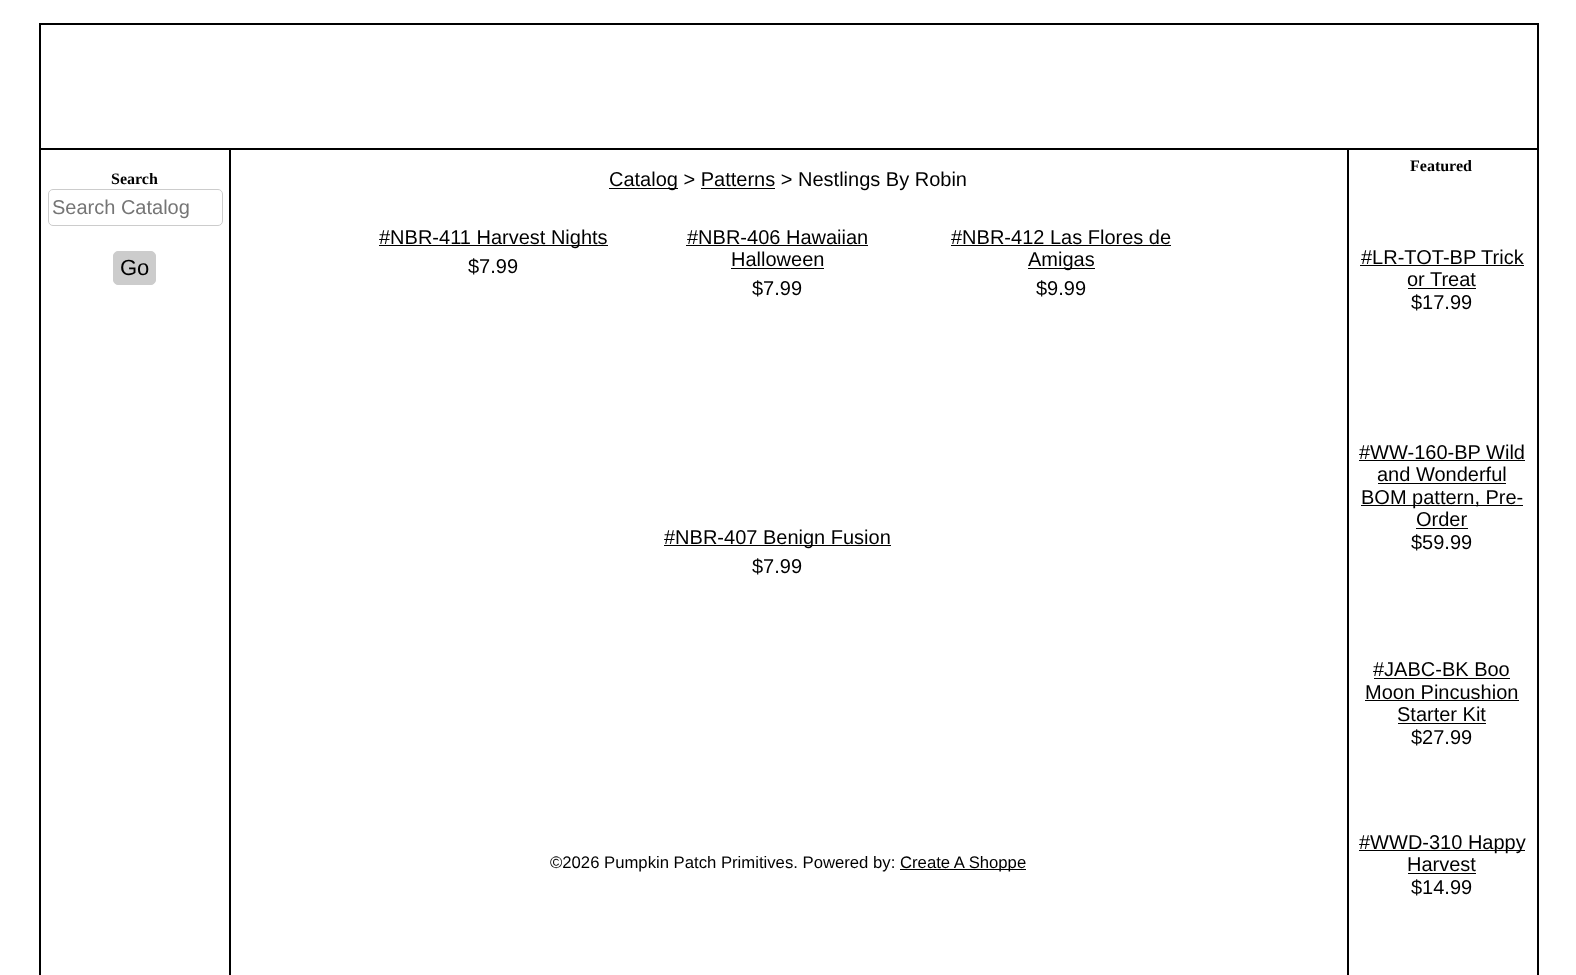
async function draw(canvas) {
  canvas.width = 1576;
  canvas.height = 975;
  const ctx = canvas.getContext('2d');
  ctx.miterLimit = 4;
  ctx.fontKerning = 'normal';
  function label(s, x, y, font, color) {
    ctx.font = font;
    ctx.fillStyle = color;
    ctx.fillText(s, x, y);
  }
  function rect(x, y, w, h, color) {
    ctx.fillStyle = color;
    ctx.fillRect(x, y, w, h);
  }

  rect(0, 0, 1576, 975, '#fff');
  ctx.strokeStyle = '#000';
  ctx.strokeRect(39.5, 23.5, 1499, 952);
  ctx.strokeRect(40.5, 24.5, 1497, 124);
  ctx.strokeRect(40.5, 149.5, 189, 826);
  label('Search', 111, 184, 'bold 16px Liberation Serif', '#000');
  ctx.beginPath();
  ctx.roundRect(48.5, 189.5, 174, 36, 4.5);
  ctx.strokeStyle = '#ccc';
  ctx.stroke();
  label('Search Catalog', 52, 214, '20px Liberation Sans', '#757575');
  ctx.fillStyle = '#ccc';
  ctx.beginPath();
  ctx.roundRect(113.5, 251.5, 42, 33, 4.5);
  ctx.fill();
  ctx.stroke();
  label('Go', 120, 275, '22px Liberation Sans', '#000');
  ctx.strokeStyle = '#000';
  ctx.strokeRect(230.5, 149.5, 1117, 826);
  rect(609, 188, 69, 1, '#000');
  label('Catalog > Patterns > Nestlings By Robin', 609, 186, '20px Liberation Sans', '#000');
  rect(701, 188, 74, 1, '#000');
  rect(379, 245, 229, 1, '#000');
  label('#NBR-411 Harvest Nights', 379, 244, '20px Liberation Sans', '#000');
  label('$7.99', 468, 273, '20px Liberation Sans', '#000');
  label('#NBR-406 Hawaiian', 687, 244, '20px Liberation Sans', '#000');
  rect(686, 245, 182, 1, '#000');
  label('Halloween', 731, 266, '20px Liberation Sans', '#000');
  rect(731, 268, 93, 1, '#000');
  label('$7.99', 752, 295, '20px Liberation Sans', '#000');
  label('#NBR-412 Las Flores de', 951, 244, '20px Liberation Sans', '#000');
  rect(951, 245, 220, 1, '#000');
  rect(1028, 268, 67, 1, '#000');
  label('Amigas', 1028, 266, '20px Liberation Sans', '#000');
  label('$9.99', 1036, 295, '20px Liberation Sans', '#000');
  rect(664, 545, 227, 1, '#000');
  label('#NBR-407 Benign Fusion', 664, 544, '20px Liberation Sans', '#000');
  label('$7.99', 752, 573, '20px Liberation Sans', '#000');
  label('©2026 Pumpkin Patch Primitives. Powered by:', 550, 868, '16.7px Liberation Sans', '#000');
  rect(900, 869, 126, 1, '#000');
  label('Create A Shoppe', 900, 868, '16.7px Liberation Sans', '#000');
  ctx.strokeRect(1348.5, 149.5, 189, 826);
  label('Featured', 1410, 171, 'bold 16px Liberation Serif', '#000');
  label('#LR-TOT-BP Trick', 1361, 264, '20px Liberation Sans', '#000');
  rect(1360, 265, 164, 1, '#000');
  label('or Treat', 1407, 286, '20px Liberation Sans', '#000');
  rect(1408, 288, 68, 1, '#000');
  label('$17.99', 1411, 309, '20px Liberation Sans', '#000');
  label('#WW-160-BP Wild', 1359, 459, '20px Liberation Sans', '#000');
  rect(1359, 460, 166, 1, '#000');
  label('and Wonderful', 1377, 481, '20px Liberation Sans', '#000');
  rect(1378, 483, 128, 1, '#000');
  rect(1361, 505, 162, 1, '#000');
  label('BOM pattern, Pre-', 1361, 504, '20px Liberation Sans', '#000');
  label('Order', 1416, 526, '20px Liberation Sans', '#000');
  rect(1416, 528, 52, 1, '#000');
  label('$59.99', 1411, 549, '20px Liberation Sans', '#000');
  label('#JABC-BK Boo', 1373, 676, '20px Liberation Sans', '#000');
  rect(1374, 678, 136, 1, '#000');
  label('Moon Pincushion', 1365, 699, '20px Liberation Sans', '#000');
  rect(1365, 700, 154, 1, '#000');
  label('Starter Kit', 1397, 721, '20px Liberation Sans', '#000');
  rect(1398, 723, 88, 1, '#000');
  label('$27.99', 1411, 744, '20px Liberation Sans', '#000');
  rect(1359, 850, 166, 1, '#000');
  label('#WWD-310 Happy', 1359, 849, '20px Liberation Sans', '#000');
  label('Harvest', 1407, 871, '20px Liberation Sans', '#000');
  rect(1408, 873, 68, 1, '#000');
  label('$14.99', 1411, 894, '20px Liberation Sans', '#000');
}

draw(document.querySelector('canvas'));
